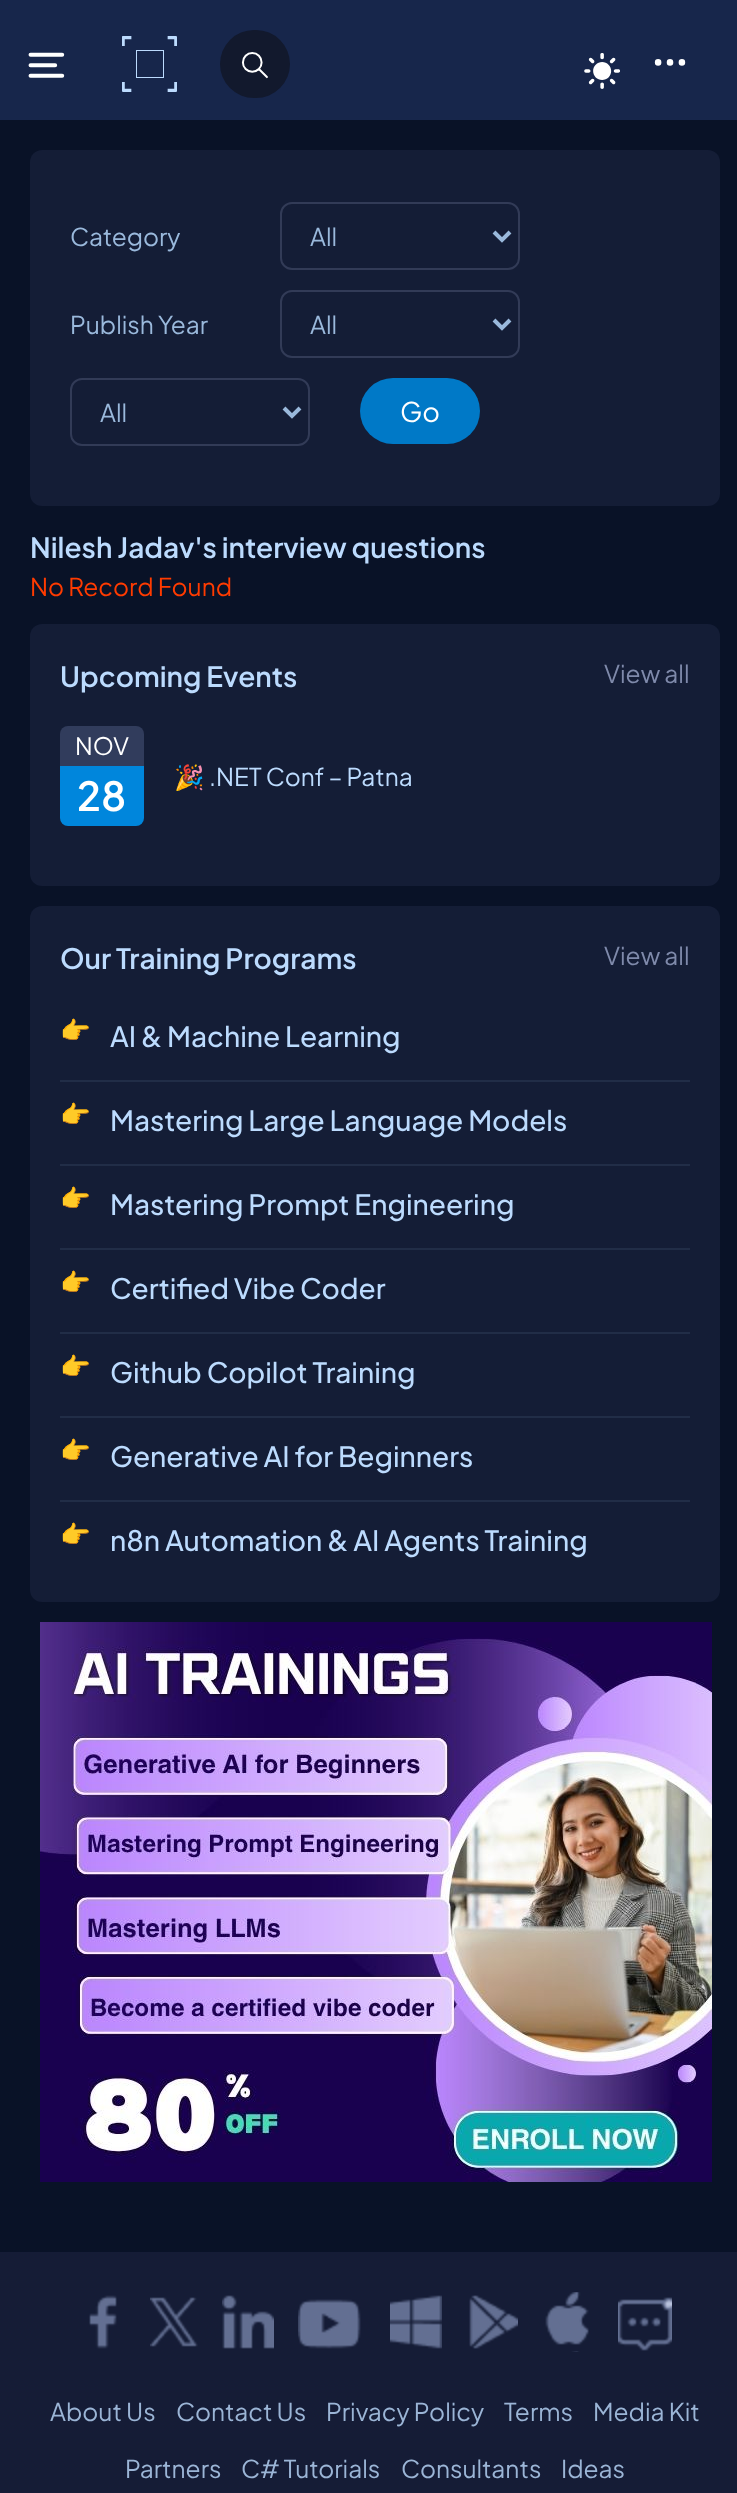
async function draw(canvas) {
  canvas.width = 737;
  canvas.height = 2493;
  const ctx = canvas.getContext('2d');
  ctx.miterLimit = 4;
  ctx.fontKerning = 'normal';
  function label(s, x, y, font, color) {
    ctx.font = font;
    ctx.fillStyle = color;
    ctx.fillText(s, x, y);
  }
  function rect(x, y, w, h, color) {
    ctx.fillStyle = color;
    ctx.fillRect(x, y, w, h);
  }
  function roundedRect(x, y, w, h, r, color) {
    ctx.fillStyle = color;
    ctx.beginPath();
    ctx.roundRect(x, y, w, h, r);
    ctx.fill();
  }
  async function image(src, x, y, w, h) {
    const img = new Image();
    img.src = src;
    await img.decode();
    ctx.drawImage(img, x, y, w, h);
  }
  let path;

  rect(0, 0, 737, 2493, '#091227');
  rect(0, 0, 737, 120, '#17264b');
  await image('assets/img1.png', 122, 36, 55, 56);
  ctx.strokeStyle = '#bcdbfe';
  ctx.strokeRect(136.5, 50.5, 27, 27);
  roundedRect(220, 30, 70, 68, 34, '#12192d');
  await image('assets/img2.png', 241, 52, 27, 27);
  await image('assets/img3.png', 584, 53, 36, 36);
  await image('assets/img4.png', 654, 59, 32, 7);
  await image('assets/img5.png', 28, 52, 37, 26);
  roundedRect(30, 150, 690, 356, 12, '#141d36');
  label('Category', 70, 246, '24.5px Plus Jakarta Sans', '#9ab9dc');
  ctx.beginPath();
  ctx.roundRect(281, 203, 238, 66, 11);
  ctx.strokeStyle = '#323b57';
  ctx.lineWidth = 2;
  ctx.stroke();
  path = new Path2D('M494 232L502 240L510 232');
  ctx.strokeStyle = '#9ab9dc';
  ctx.lineWidth = 4;
  ctx.stroke(path);
  label('All', 310, 246, '24.5px Plus Jakarta Sans', '#9ab9dc');
  label('Publish Year', 70, 334, '24.5px Plus Jakarta Sans', '#9ab9dc');
  ctx.beginPath();
  ctx.roundRect(281, 291, 238, 66, 11);
  ctx.strokeStyle = '#323b57';
  ctx.lineWidth = 2;
  ctx.stroke();
  path = new Path2D('M494 320L502 328L510 320');
  ctx.strokeStyle = '#9ab9dc';
  ctx.lineWidth = 4;
  ctx.stroke(path);
  label('All', 310, 334, '24.5px Plus Jakarta Sans', '#9ab9dc');
  ctx.beginPath();
  ctx.roundRect(71, 379, 238, 66, 11);
  ctx.strokeStyle = '#323b57';
  ctx.lineWidth = 2;
  ctx.stroke();
  path = new Path2D('M284 408L292 416L300 408');
  ctx.strokeStyle = '#9ab9dc';
  ctx.lineWidth = 4;
  ctx.stroke(path);
  label('All', 100, 422, '24.5px Plus Jakarta Sans', '#9ab9dc');
  roundedRect(360, 378, 120, 66, 33, '#0079c7');
  label('Go', 400, 422, '27px Plus Jakarta Sans', '#fff');
  label('Nilesh Jadav\'s interview questions', 30, 558, '600 28px Plus Jakarta Sans', '#bcdbfe');
  label('No Record Found', 30, 596, '24.5px Plus Jakarta Sans', '#ff3b00');
  roundedRect(30, 624, 690, 262, 12, '#141d36');
  label('Upcoming Events', 60, 687, '600 28px Plus Jakarta Sans', '#bcdbfe');
  label('View all', 604, 683, '24.5px Plus Jakarta Sans', '#7f8aab');
  ctx.fillStyle = '#313c5c';
  ctx.beginPath();
  ctx.roundRect(60, 726, 84, 40, [8, 8, 0, 0]);
  ctx.fill();
  ctx.fillStyle = '#0086dc';
  ctx.beginPath();
  ctx.roundRect(60, 766, 84, 60, [0, 0, 8, 8]);
  ctx.fill();
  label('NOV', 75, 755, '24px Plus Jakarta Sans', '#fff');
  label('28', 77, 811, '600 40px Plus Jakarta Sans', '#fff');
  label('🎉', 174, 786, '24.5px Noto Color Emoji', '#bcdbfe');
  label('.NET Conf – Patna', 209, 786, '24.5px Plus Jakarta Sans', '#bcdbfe');
  roundedRect(30, 906, 690, 696, 12, '#141d36');
  label('Our Training Programs', 60, 969, '600 28px Plus Jakarta Sans', '#bcdbfe');
  label('View all', 604, 965, '24.5px Plus Jakarta Sans', '#7f8aab');
  rect(60, 1080, 630, 2, '#212d47');
  label('👉', 60, 1039, '24.5px Noto Color Emoji', '#9ab9dc');
  label('AI & Machine Learning', 110, 1047, '500 28px Plus Jakarta Sans', '#bcdbfe');
  rect(60, 1164, 630, 2, '#212d47');
  label('👉', 60, 1123, '24.5px Noto Color Emoji', '#9ab9dc');
  label('Mastering Large Language Models', 110, 1131, '500 28px Plus Jakarta Sans', '#bcdbfe');
  rect(60, 1248, 630, 2, '#212d47');
  label('👉', 60, 1207, '24.5px Noto Color Emoji', '#9ab9dc');
  label('Mastering Prompt Engineering', 110, 1215, '500 28px Plus Jakarta Sans', '#bcdbfe');
  rect(60, 1332, 630, 2, '#212d47');
  label('👉', 60, 1291, '24.5px Noto Color Emoji', '#9ab9dc');
  label('Certified Vibe Coder', 110, 1299, '500 28px Plus Jakarta Sans', '#bcdbfe');
  rect(60, 1416, 630, 2, '#212d47');
  label('👉', 60, 1375, '24.5px Noto Color Emoji', '#9ab9dc');
  label('Github Copilot Training', 110, 1383, '500 28px Plus Jakarta Sans', '#bcdbfe');
  rect(60, 1500, 630, 2, '#212d47');
  label('👉', 60, 1459, '24.5px Noto Color Emoji', '#9ab9dc');
  label('Generative AI for Beginners', 110, 1467, '500 28px Plus Jakarta Sans', '#bcdbfe');
  label('👉', 60, 1543, '24.5px Noto Color Emoji', '#9ab9dc');
  label('n8n Automation & AI Agents Training', 110, 1551, '500 28px Plus Jakarta Sans', '#bcdbfe');
  await image('assets/img6.png', 40, 1622, 672, 560);
  rect(0, 2252, 737, 241, '#151c36');
  await image('assets/img7.png', 89, 2295, 28, 54);
  await image('assets/img8.png', 150, 2297, 48, 50);
  await image('assets/img9.png', 222, 2295, 52, 54);
  await image('assets/img10.png', 298, 2299, 63, 50);
  await image('assets/img11.png', 390, 2295, 52, 54);
  await image('assets/img12.png', 469, 2295, 49, 54);
  await image('assets/img13.png', 545, 2292, 44, 60);
  await image('assets/img14.png', 618, 2297, 54, 54);
  label('About Us', 50, 2421, '24.5px Plus Jakarta Sans', '#9bb5d6');
  label('Contact Us', 176, 2421, '24.5px Plus Jakarta Sans', '#9bb5d6');
  label('Privacy Policy', 326, 2421, '24.5px Plus Jakarta Sans', '#9bb5d6');
  label('Terms', 504, 2421, '24.5px Plus Jakarta Sans', '#9bb5d6');
  label('Media Kit', 593, 2421, '24.5px Plus Jakarta Sans', '#9bb5d6');
  label('Partners', 125, 2478, '24.5px Plus Jakarta Sans', '#9bb5d6');
  label('C# Tutorials', 241, 2478, '24.5px Plus Jakarta Sans', '#9bb5d6');
  label('Consultants', 401, 2478, '24.5px Plus Jakarta Sans', '#9bb5d6');
  label('Ideas', 561, 2478, '24.5px Plus Jakarta Sans', '#9bb5d6');
}

draw(document.querySelector('canvas'));
